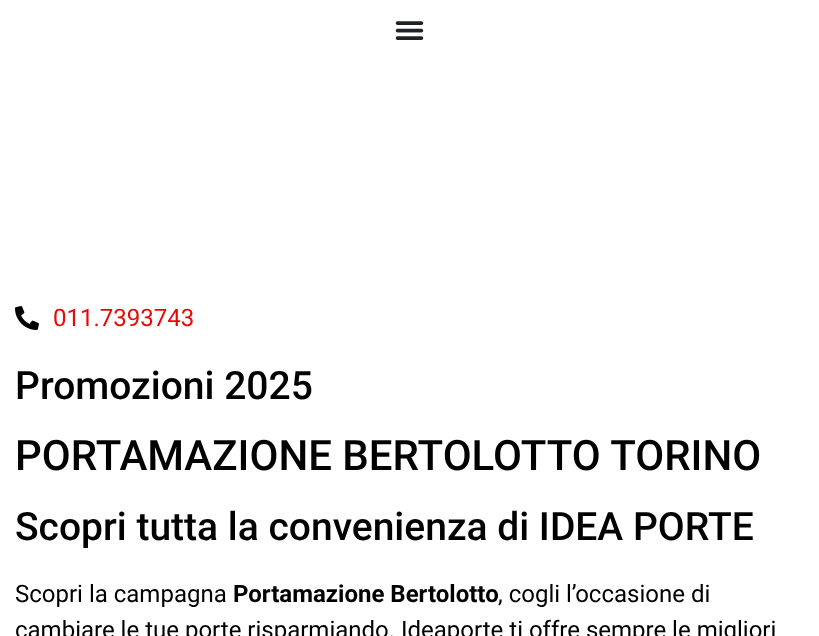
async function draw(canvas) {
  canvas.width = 819;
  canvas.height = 636;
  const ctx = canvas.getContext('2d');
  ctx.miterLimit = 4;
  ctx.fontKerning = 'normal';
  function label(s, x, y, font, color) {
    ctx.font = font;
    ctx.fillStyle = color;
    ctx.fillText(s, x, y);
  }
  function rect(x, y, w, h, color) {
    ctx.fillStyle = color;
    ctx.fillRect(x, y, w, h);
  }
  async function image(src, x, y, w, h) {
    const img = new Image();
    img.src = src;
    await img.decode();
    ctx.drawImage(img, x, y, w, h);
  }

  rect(0, 0, 819, 636, '#fff');
  await image('assets/img1.png', 395, 21, 29, 19);
  await image('assets/img2.png', 15, 306, 24, 24);
  label('011.7393743', 53, 326, '24px Roboto', '#e70808');
  label('Promozioni 2025', 15, 399, '500 39px Roboto', '#000');
  label('PORTAMAZIONE BERTOLOTTO TORINO', 15, 470, '500 42px Roboto', '#000');
  label('Scopri tutta la convenienza di IDEA PORTE', 15, 540, '500 39px Roboto', '#000');
  label('Scopri la campagna', 15, 602, '24px Roboto', '#000');
  label('Portamazione Bertolotto', 233, 602, 'bold 24px Roboto', '#000');
  label(', cogli l’occasione di', 498, 602, '24px Roboto', '#000');
  label('cambiare le tue porte risparmiando. Ideaporte ti offre sempre le migliori', 15, 638, '24px Roboto', '#000');
}

draw(document.querySelector('canvas'));
